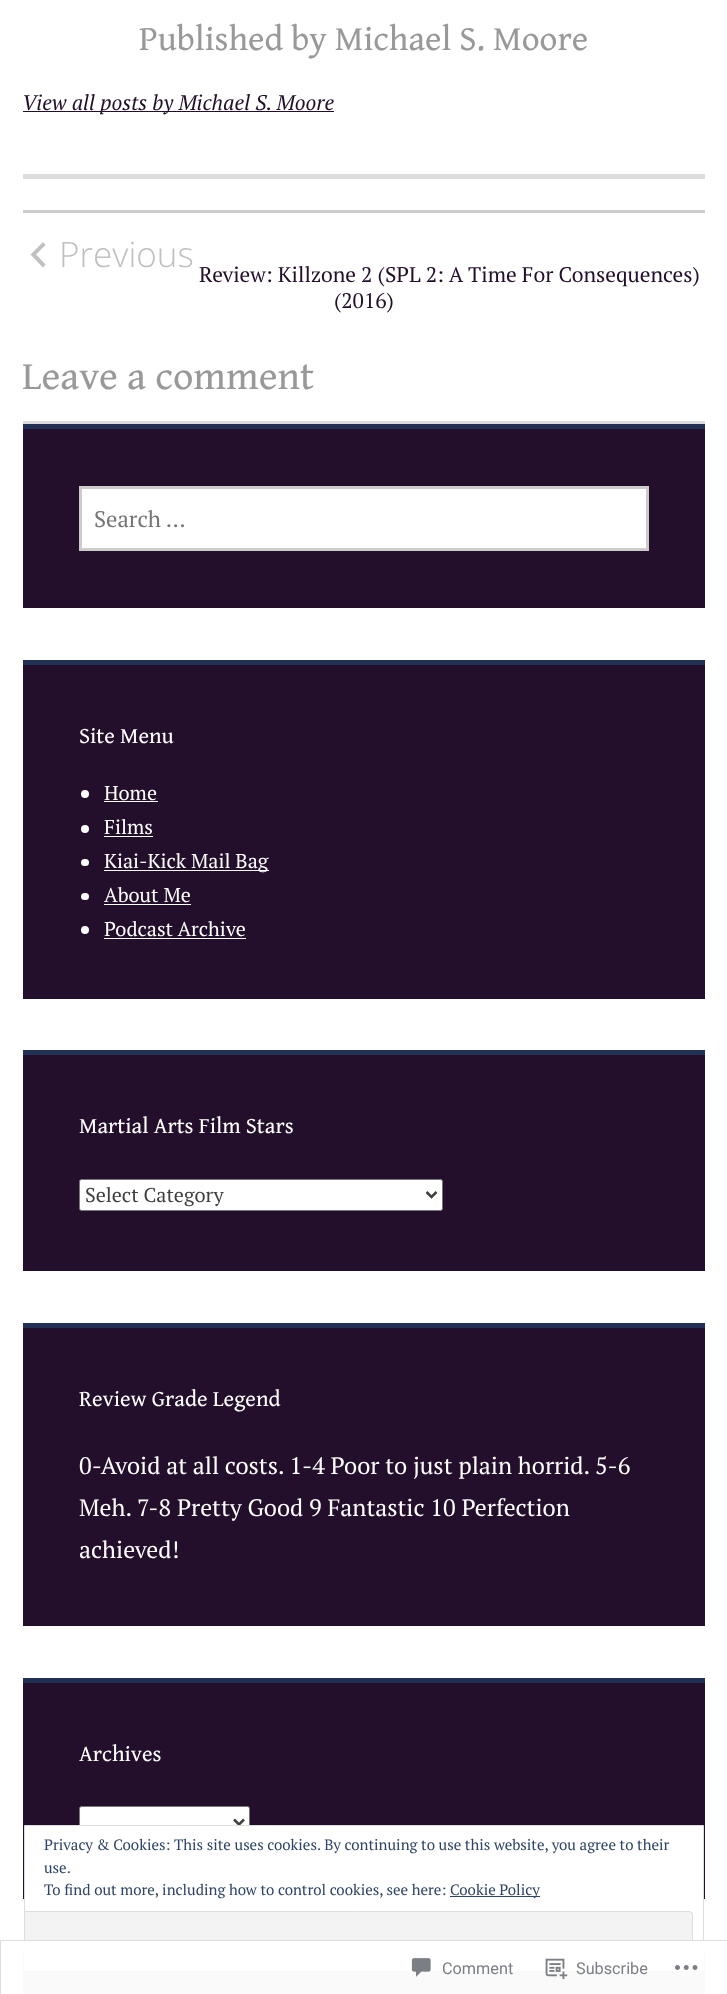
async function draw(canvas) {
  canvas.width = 727;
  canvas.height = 1994;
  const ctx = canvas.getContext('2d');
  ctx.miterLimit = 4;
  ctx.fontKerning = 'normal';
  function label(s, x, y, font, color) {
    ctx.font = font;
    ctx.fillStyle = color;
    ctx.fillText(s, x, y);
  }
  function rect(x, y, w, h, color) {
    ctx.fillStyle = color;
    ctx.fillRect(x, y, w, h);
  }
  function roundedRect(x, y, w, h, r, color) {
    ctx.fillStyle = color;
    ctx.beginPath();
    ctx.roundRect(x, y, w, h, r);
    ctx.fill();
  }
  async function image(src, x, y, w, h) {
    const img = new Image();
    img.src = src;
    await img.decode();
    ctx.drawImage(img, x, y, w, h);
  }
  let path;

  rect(0, 0, 727, 1994, '#fff');
  rect(23, 174, 682, 5, '#ddd');
  label('Published by Michael S. Moore', 139, 50, '35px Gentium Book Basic', '#999');
  rect(23, 111, 311, 1, '#230f2b');
  label('View all posts by Michael S. Moore', 22, 110, 'italic 21.25px PT Serif', '#230f2b');
  rect(23, 210, 682, 3, '#ccc');
  ctx.fillStyle = '#c0c0c0';
  path = new Path2D('M45.5 245L36 254.5L45.5 264.5L43 267.5L30.5 254.5L43 242Z');
  ctx.fill(path);
  label('Previous', 59, 267, '300 35px Open Sans', '#c0c0c0');
  label('Review: Killzone 2 (SPL 2: A Time For Consequences)', 199, 282, '21.25px PT Serif', '#230f2b');
  label('(2016)', 334, 308, '21.25px PT Serif', '#230f2b');
  label('Leave a comment', 22, 389, '40px Gentium Book Basic', '#999');
  rect(23, 421, 682, 3, '#dcdcde');
  rect(23, 429, 682, 179, '#230f2b');
  rect(23, 424, 682, 5, '#213055');
  ctx.fillStyle = '#fff';
  ctx.beginPath();
  ctx.rect(80.5, 487.5, 567, 62);
  ctx.fill();
  ctx.strokeStyle = '#ccc';
  ctx.lineWidth = 3;
  ctx.stroke();
  label('Search …', 94, 527, '22.5px PT Serif', '#757575');
  rect(23, 665, 682, 334, '#230f2b');
  rect(23, 660, 682, 5, '#213055');
  label('Site Menu', 79, 743, '22.5px Gentium Book Basic', '#fff');
  ctx.beginPath();
  ctx.arc(85, 794, 4, 0, 2 * Math.PI);
  ctx.fill();
  label('Home', 104, 800, '20px PT Serif', '#fff');
  rect(104, 801, 54, 1, '#fff');
  ctx.beginPath();
  ctx.arc(85, 829, 4, 0, 2 * Math.PI);
  ctx.fill();
  label('Films', 104, 834, '20px PT Serif', '#fff');
  rect(104, 836, 49, 1, '#fff');
  roundedRect(81, 859, 8, 7, 3.5, '#fff');
  rect(104, 870, 165, 1, '#fff');
  label('Kiai-Kick Mail Bag', 104, 868, '20px PT Serif', '#fff');
  roundedRect(81, 893, 8, 7, 3.5, '#fff');
  label('About Me', 104, 902, '20px PT Serif', '#fff');
  rect(104, 904, 87, 1, '#fff');
  ctx.beginPath();
  ctx.arc(85, 930, 4, 0, 2 * Math.PI);
  ctx.fill();
  label('Podcast Archive', 104, 936, '20px PT Serif', '#fff');
  rect(104, 938, 142, 1, '#fff');
  rect(23, 1055, 682, 216, '#230f2b');
  rect(23, 1050, 682, 5, '#213055');
  label('Martial Arts Film Stars', 79, 1133, '22.5px Gentium Book Basic', '#fff');
  ctx.beginPath();
  ctx.roundRect(79.5, 1179.5, 363, 31, 2);
  ctx.fill();
  ctx.strokeStyle = '#767676';
  ctx.lineWidth = 1;
  ctx.stroke();
  path = new Path2D('M426.5 1192L431.5 1197L436.5 1192');
  ctx.strokeStyle = '#404040';
  ctx.lineWidth = 2.5;
  ctx.stroke(path);
  label('Select Category', 85, 1202, '20px PT Serif', '#404040');
  rect(23, 1328, 682, 298, '#230f2b');
  rect(23, 1323, 682, 5, '#213055');
  label('Review Grade Legend', 79, 1406, '22.5px Gentium Book Basic', '#fff');
  label('0-Avoid at all costs. 1-4 Poor to just plain horrid. 5-6', 79, 1474, '23.75px PT Serif', '#fff');
  label('Meh. 7-8 Pretty Good 9 Fantastic 10 Perfection', 79, 1516, '23.75px PT Serif', '#fff');
  label('achieved!', 79, 1558, '23.75px PT Serif', '#fff');
  rect(23, 1683, 682, 216, '#230f2b');
  rect(23, 1678, 682, 5, '#213055');
  label('Archives', 79, 1761, '22.5px Gentium Book Basic', '#fff');
  ctx.beginPath();
  ctx.roundRect(79.5, 1806.5, 170, 32, 2);
  ctx.fill();
  ctx.strokeStyle = '#767676';
  ctx.lineWidth = 1;
  ctx.stroke();
  path = new Path2D('M234 1819.5L239 1824.5L244 1819.5');
  ctx.strokeStyle = '#404040';
  ctx.lineWidth = 2.5;
  ctx.stroke(path);
  rect(23, 1955, 682, 39, '#230f2b');
  rect(23, 1950, 682, 5, '#213055');
  ctx.fillStyle = '#fff';
  ctx.beginPath();
  ctx.rect(24.5, 1825.5, 679, 145);
  ctx.fill();
  ctx.strokeStyle = '#dedede';
  ctx.lineWidth = 1;
  ctx.stroke();
  label('Privacy & Cookies: This site uses cookies. By continuing to use this website, you agree to their', 44, 1850, '15px PT Serif', '#2e4467');
  label('use.', 44, 1873, '15px PT Serif', '#2e4467');
  label('To find out more, including how to control cookies, see here:', 44, 1895, '15px PT Serif', '#2e4467');
  rect(450, 1896, 90, 1, '#2e4467');
  label('Cookie Policy', 450, 1895, '15px PT Serif', '#2e4467');
  ctx.fillStyle = '#f3f3f3';
  ctx.beginPath();
  ctx.roundRect(25, 1911, 668, 49, [0, 4, 4, 0]);
  ctx.fill();
  ctx.save();
  ctx.beginPath();
  ctx.rect(25, 1826, 678, 144);
  ctx.clip();
  ctx.beginPath();
  ctx.roundRect(15.5, 1911.5, 677, 48, 3.5);
  ctx.stroke();
  ctx.restore();
  rect(23, 1940, 682, 54, '#fffffffa');
  ctx.strokeStyle = '#dcdcdefa';
  ctx.strokeRect(0.5, 1940.5, 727, 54);
  await image('assets/img1.png', 411, 1958, 20, 19);
  label('Comment', 442, 1974, '16.25px Roboto', '#7b7f84');
  await image('assets/img2.png', 545, 1958, 23, 22);
  label('Subscribe', 576, 1974, '16.25px Roboto', '#7b7f84');
  await image('assets/img3.png', 675, 1965, 23, 5);
}

draw(document.querySelector('canvas'));
